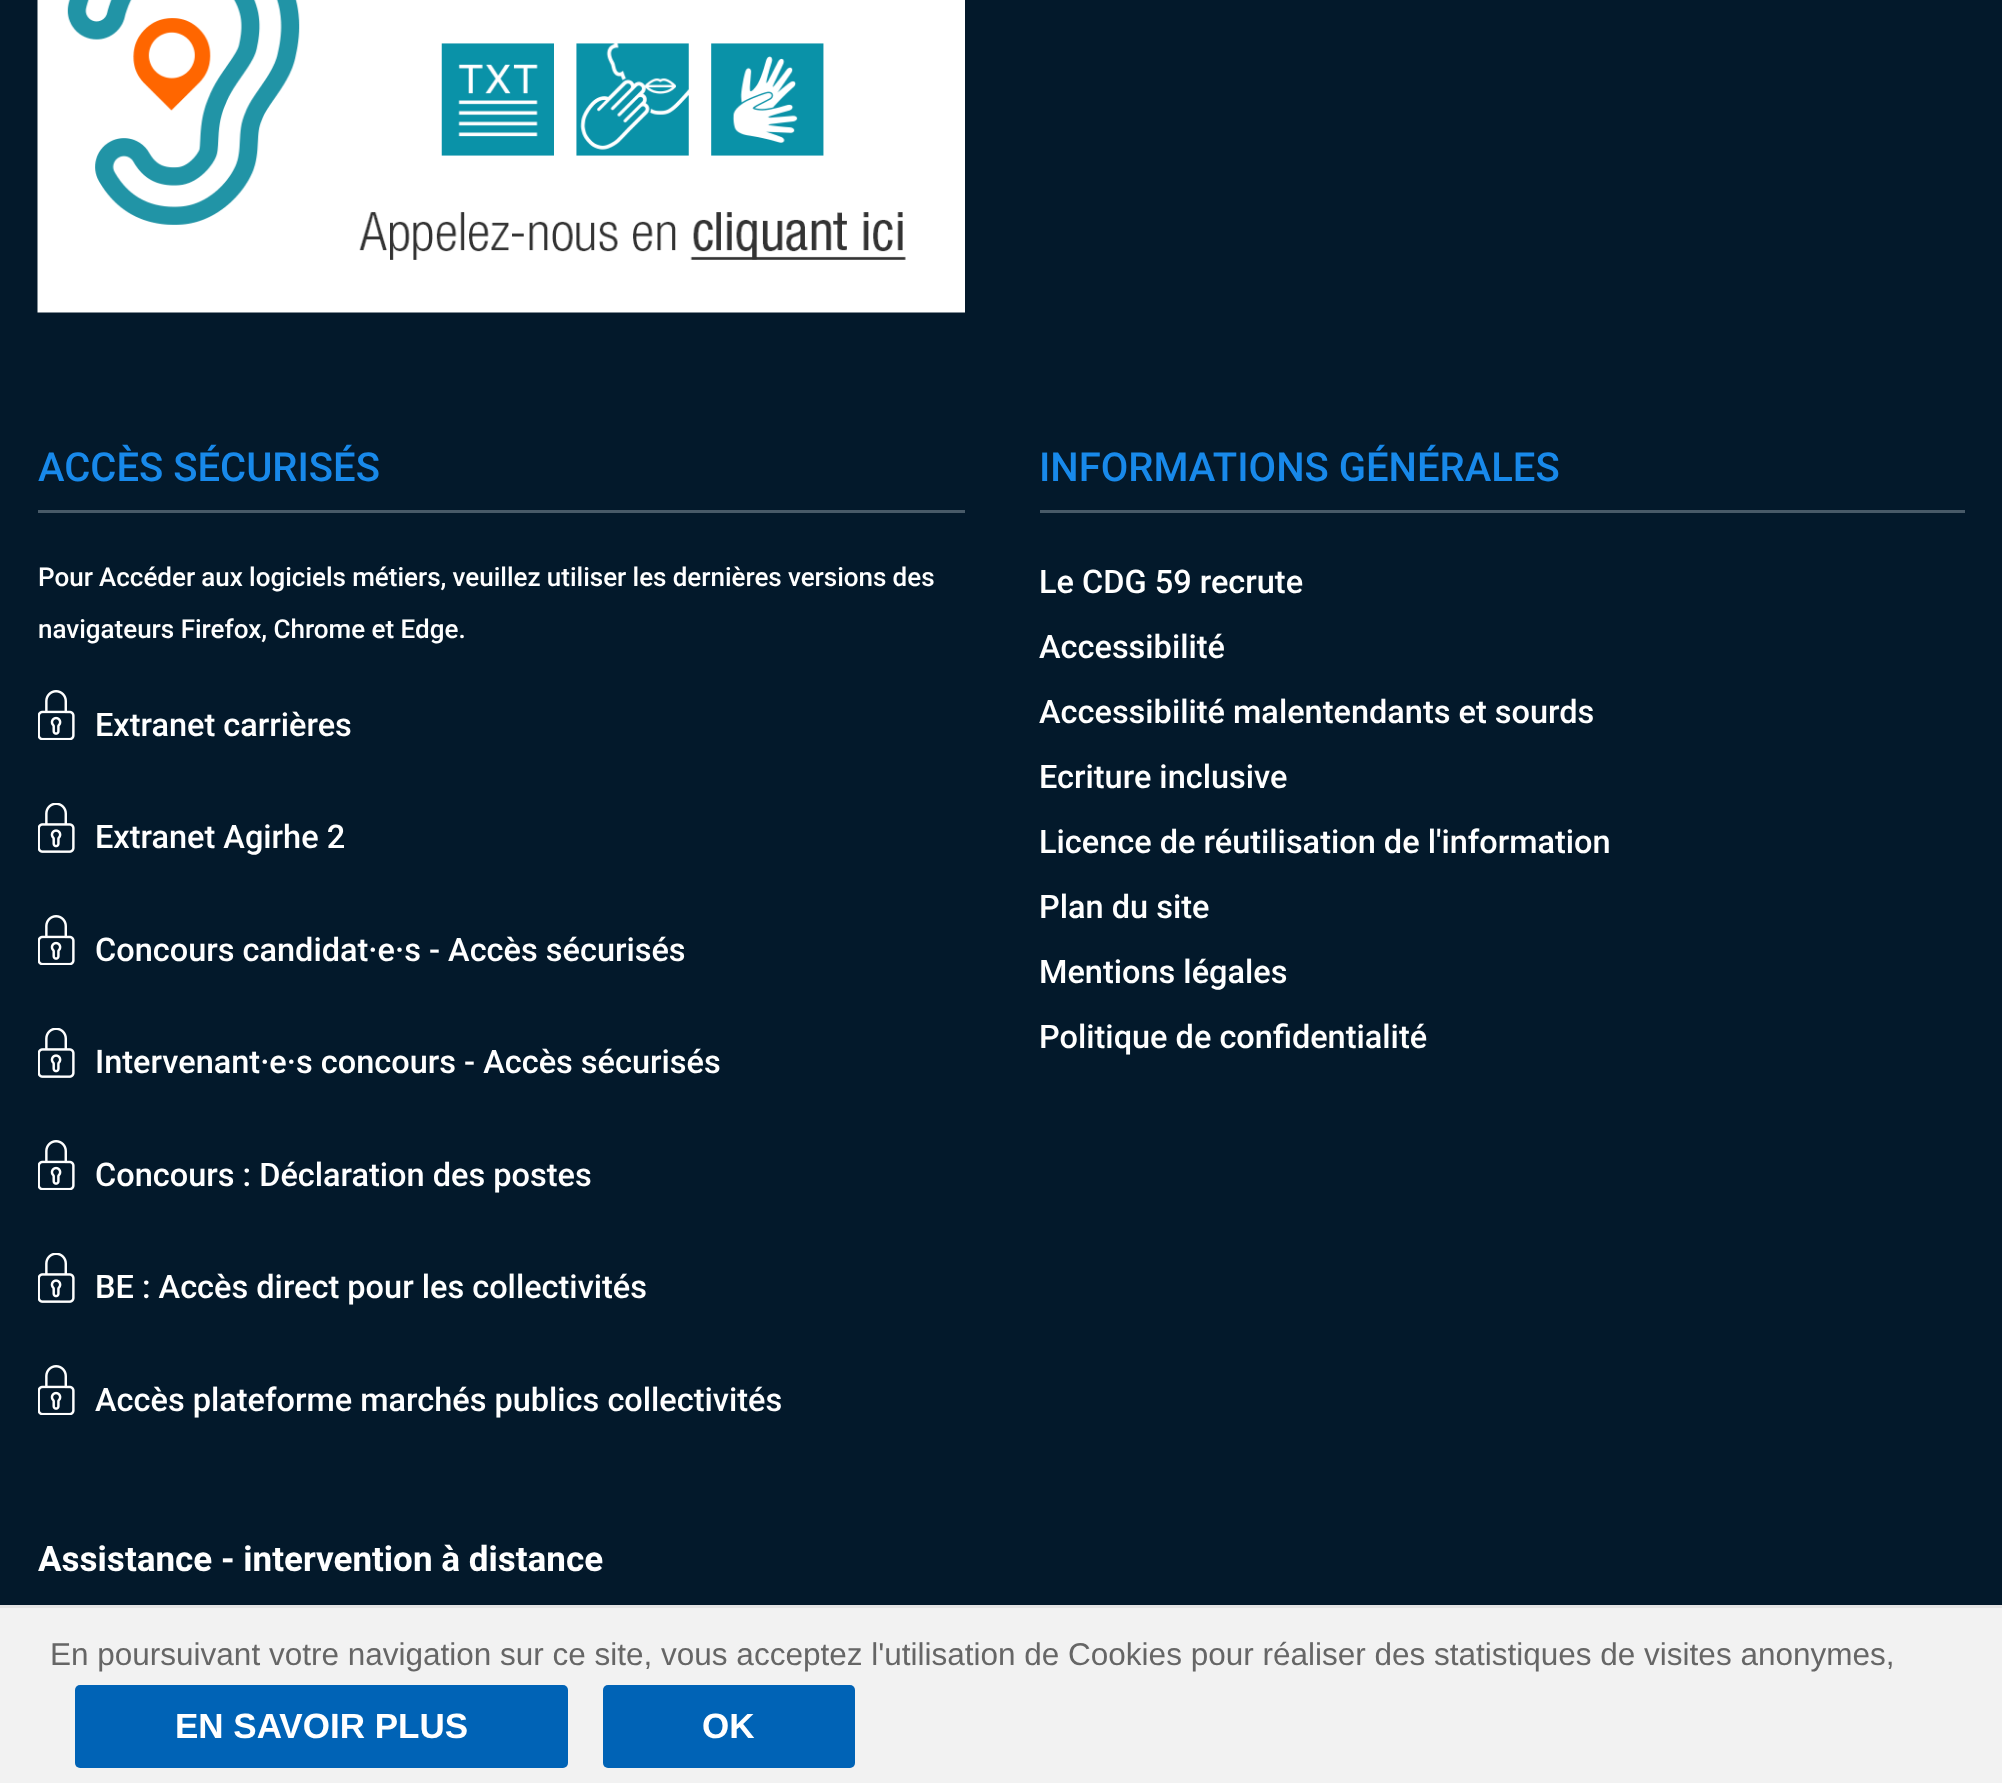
async function draw(canvas) {
  canvas.width = 2002;
  canvas.height = 1783;
  const ctx = canvas.getContext('2d');
  ctx.miterLimit = 4;
  ctx.fontKerning = 'normal';
  function label(s, x, y, font, color) {
    ctx.font = font;
    ctx.fillStyle = color;
    ctx.fillText(s, x, y);
  }
  function rect(x, y, w, h, color) {
    ctx.fillStyle = color;
    ctx.fillRect(x, y, w, h);
  }
  function roundedRect(x, y, w, h, r, color) {
    ctx.fillStyle = color;
    ctx.beginPath();
    ctx.roundRect(x, y, w, h, r);
    ctx.fill();
  }
  async function image(src, x, y, w, h) {
    const img = new Image();
    img.src = src;
    await img.decode();
    ctx.drawImage(img, x, y, w, h);
  }

  rect(0, 0, 2002, 1783, '#03192b');
  await image('assets/img1.png', 37, 0, 928, 313);
  rect(38, 510, 927, 3, '#485a68');
  label('ACCÈS SÉCURISÉS', 38, 481, '500 40px Roboto', '#1889ea');
  ctx.wordSpacing = '-0.25px';
  label('Pour Accéder aux logiciels métiers, veuillez utiliser les dernières versions des', 38, 586, '500 26px Roboto', '#fff');
  ctx.wordSpacing = '0px';
  label('navigateurs Firefox, Chrome et Edge.', 38, 638, '500 26px Roboto', '#fff');
  await image('assets/img2.png', 38, 690, 37, 50);
  label('Extranet carrières', 95, 736, '500 32.5px Roboto', '#fff');
  await image('assets/img3.png', 38, 803, 37, 50);
  label('Extranet Agirhe 2', 95, 848, '500 32.5px Roboto', '#fff');
  await image('assets/img2.png', 38, 915, 37, 50);
  label('Concours candidat·e·s - Accès sécurisés', 95, 961, '500 32.5px Roboto', '#fff');
  await image('assets/img3.png', 38, 1028, 37, 50);
  label('Intervenant·e·s concours - Accès sécurisés', 95, 1073, '500 32.5px Roboto', '#fff');
  await image('assets/img2.png', 38, 1140, 37, 50);
  label('Concours : Déclaration des postes', 95, 1186, '500 32.5px Roboto', '#fff');
  await image('assets/img3.png', 38, 1253, 37, 50);
  label('BE : Accès direct pour les collectivités', 95, 1298, '500 32.5px Roboto', '#fff');
  await image('assets/img2.png', 38, 1365, 37, 50);
  label('Accès plateforme marchés publics collectivités', 95, 1411, '500 32.5px Roboto', '#fff');
  label('Assistance - intervention à distance', 38, 1571, 'bold 35px Roboto', '#fff');
  rect(1040, 510, 925, 3, '#485a68');
  label('INFORMATIONS GÉNÉRALES', 1039, 481, '500 40px Roboto', '#1889ea');
  label('Le CDG 59 recrute', 1039, 593, '500 32.5px Roboto', '#fff');
  label('Accessibilité', 1039, 658, '500 32.5px Roboto', '#fff');
  label('Accessibilité malentendants et sourds', 1039, 723, '500 32.5px Roboto', '#fff');
  label('Ecriture inclusive', 1039, 788, '500 32.5px Roboto', '#fff');
  label('Licence de réutilisation de l\'information', 1039, 853, '500 32.5px Roboto', '#fff');
  label('Plan du site', 1039, 918, '500 32.5px Roboto', '#fff');
  label('Mentions légales', 1039, 983, '500 32.5px Roboto', '#fff');
  label('Politique de confidentialité', 1039, 1048, '500 32.5px Roboto', '#fff');
  rect(0, 1608, 2002, 175, '#f2f2f2');
  rect(0, 1605, 2002, 3, '#e4e4e4');
  label('En poursuivant votre navigation sur ce site, vous acceptez l\'utilisation de Cookies pour réaliser des statistiques de visites anonymes,', 50, 1665, '31.5px Liberation Sans', '#666');
  roundedRect(75, 1685, 493, 83, 5, '#0063b6');
  label('EN SAVOIR PLUS', 175, 1738, 'bold 35px Liberation Sans', '#fff');
  roundedRect(603, 1685, 252, 83, 5, '#0063b6');
  label('OK', 702, 1738, 'bold 35px Liberation Sans', '#fff');
}

draw(document.querySelector('canvas'));
